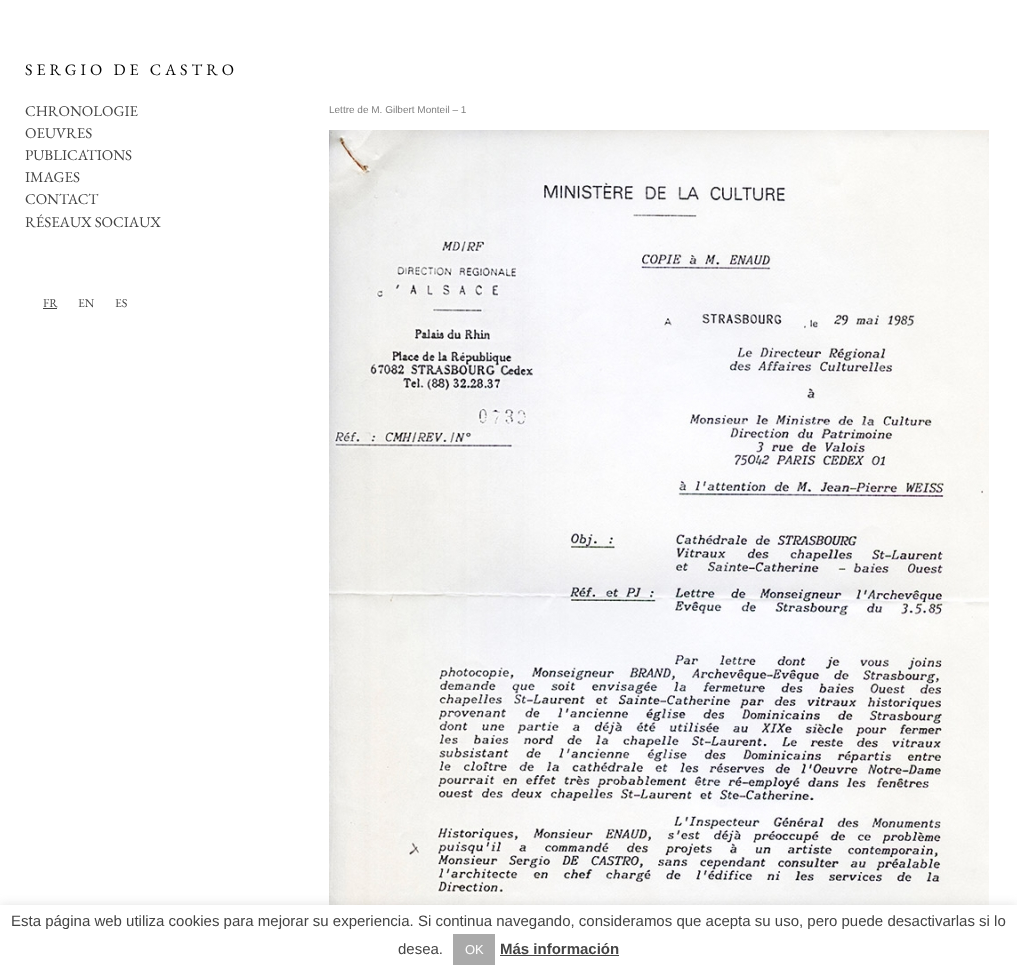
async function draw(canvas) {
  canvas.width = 1017;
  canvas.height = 972;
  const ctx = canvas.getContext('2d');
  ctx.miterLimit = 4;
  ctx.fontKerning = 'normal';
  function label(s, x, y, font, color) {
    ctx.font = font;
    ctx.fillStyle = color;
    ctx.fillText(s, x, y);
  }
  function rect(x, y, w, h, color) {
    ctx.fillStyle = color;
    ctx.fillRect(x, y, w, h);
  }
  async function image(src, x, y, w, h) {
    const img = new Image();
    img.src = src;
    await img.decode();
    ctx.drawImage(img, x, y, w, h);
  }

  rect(0, 0, 1017, 972, '#fff');
  ctx.letterSpacing = '4px';
  label('SERGIO DE CASTRO', 25, 75, '16px EB Garamond', '#000');
  ctx.letterSpacing = '0px';
  label('CHRONOLOGIE', 25, 116, '15px EB Garamond', '#444');
  label('OEUVRES', 25, 138, '15px EB Garamond', '#444');
  label('PUBLICATIONS', 25, 160, '15px EB Garamond', '#444');
  label('IMAGES', 25, 182, '15px EB Garamond', '#444');
  label('CONTACT', 25, 204, '15px EB Garamond', '#444');
  label('RÉSEAUX SOCIAUX', 25, 227, '15px EB Garamond', '#444');
  label('FR', 43, 307, '12px EB Garamond', '#444');
  rect(43, 308, 14, 1, '#444');
  label('EN', 78, 307, '12px EB Garamond', '#444');
  label('ES', 115, 307, '12px EB Garamond', '#444');
  label('Lettre de M. Gilbert Monteil – 1', 329, 113, '10px Liberation Sans', '#808080');
  await image('assets/img1.png', 329, 130, 660, 775);
  ctx.fillStyle = '#acabab4d';
  ctx.filter = 'blur(5px)';
  ctx.beginPath();
  ctx.rect(0, 904, 1017, 67);
  ctx.fill();
  ctx.filter = 'none';
  rect(0, 905, 1017, 67, '#fff');
  label('Esta página web utiliza cookies para mejorar su experiencia. Si continua navegando, consideramos que acepta su uso, pero puede desactivarlas si lo', 11, 926, '15px Liberation Sans', '#444');
  label('desea.', 398, 954, '15px Liberation Sans', '#444');
  rect(453, 934, 42, 31, '#aaa');
  label('OK', 465, 954, '13px Liberation Sans', '#fff');
  label('Más información', 500, 954, 'bold 15px Liberation Sans', '#444');
  rect(500, 955, 119, 1, '#444');
}

draw(document.querySelector('canvas'));
